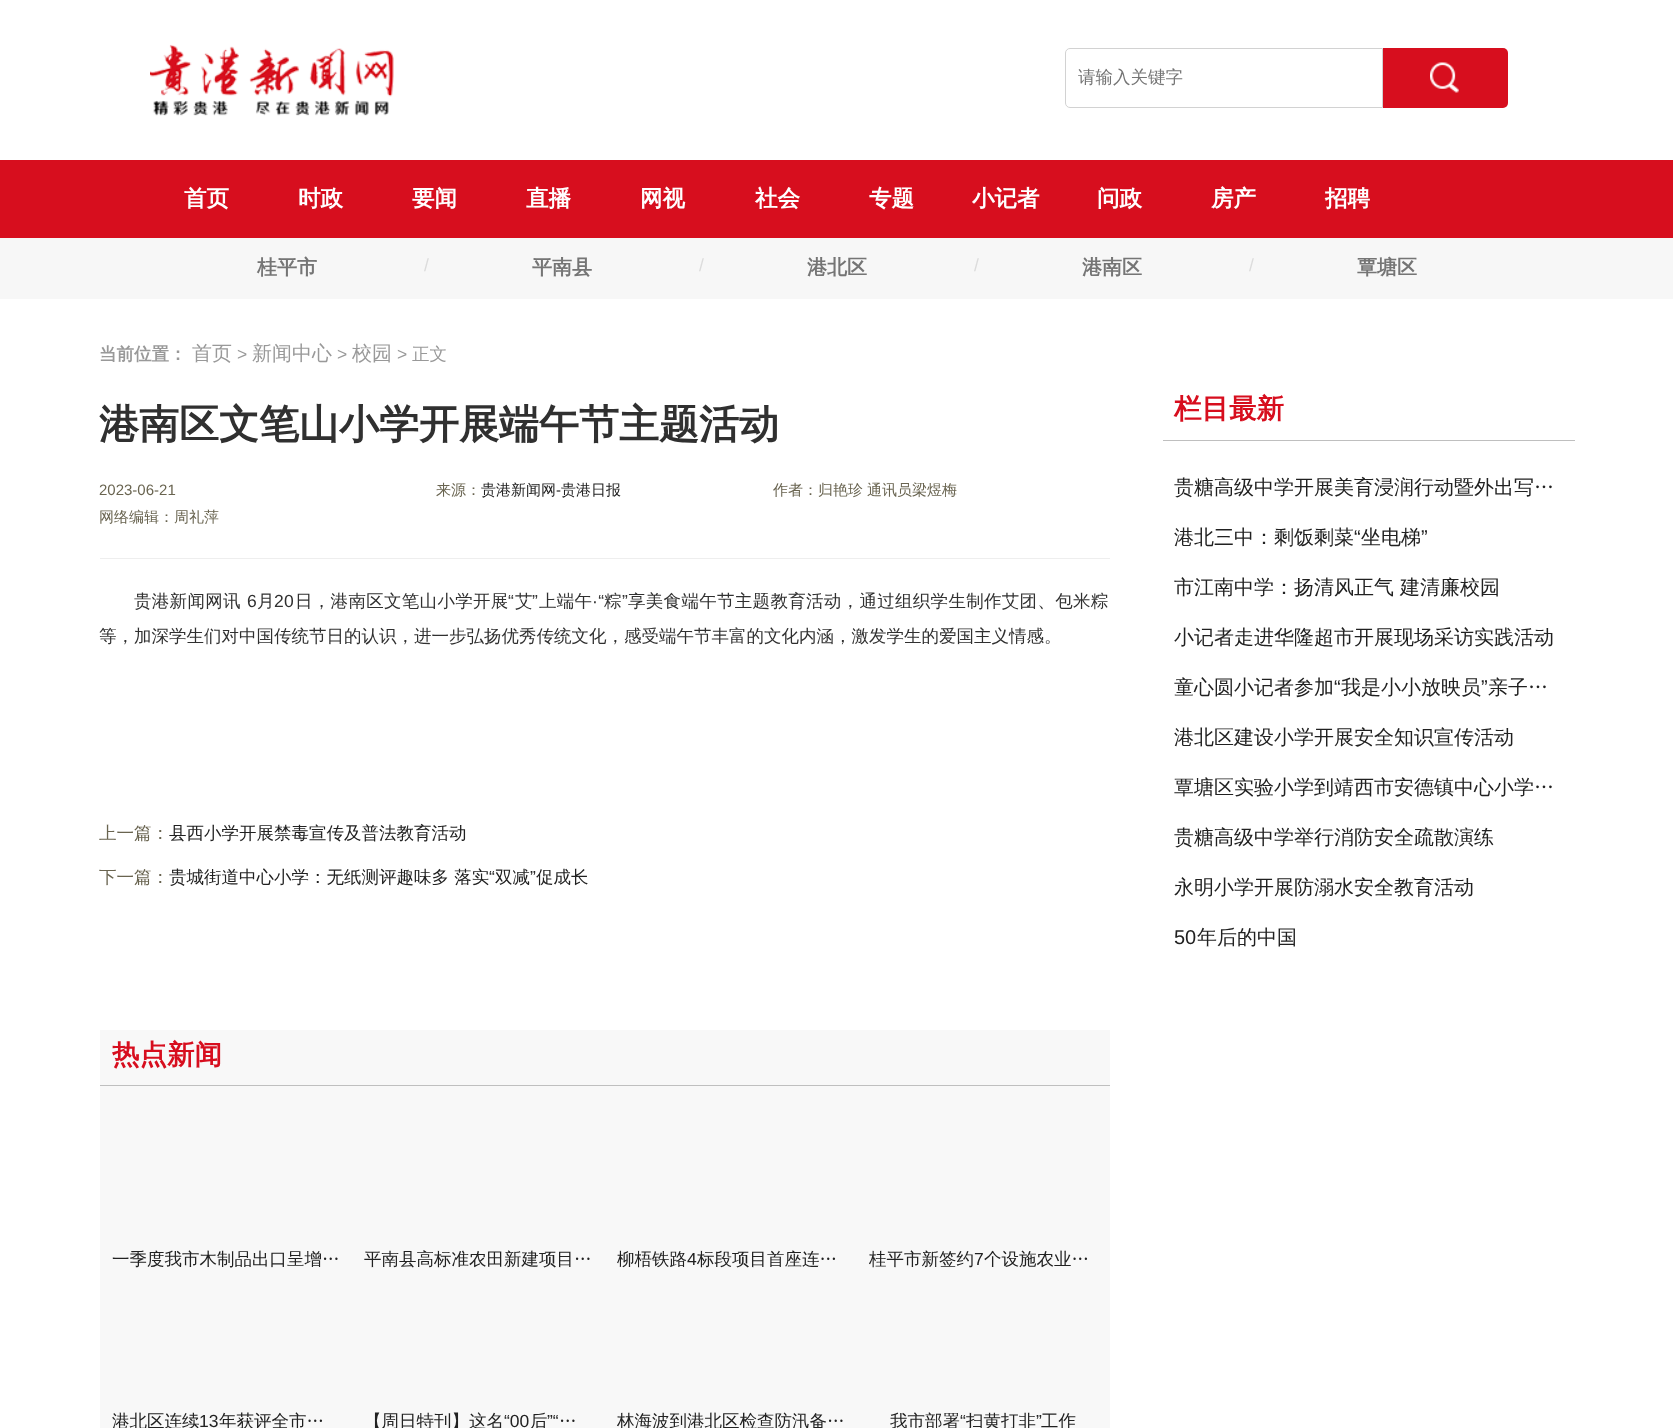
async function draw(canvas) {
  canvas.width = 1673;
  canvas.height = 1428;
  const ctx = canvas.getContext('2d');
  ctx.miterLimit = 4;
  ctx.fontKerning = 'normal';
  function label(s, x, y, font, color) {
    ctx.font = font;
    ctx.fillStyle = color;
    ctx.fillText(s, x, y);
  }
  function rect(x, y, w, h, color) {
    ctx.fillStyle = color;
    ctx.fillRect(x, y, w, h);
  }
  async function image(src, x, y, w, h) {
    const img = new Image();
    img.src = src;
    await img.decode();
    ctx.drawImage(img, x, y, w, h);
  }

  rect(0, 0, 1673, 1428, '#fff');
  await image('assets/img1.png', 150, 44, 244, 72);
  ctx.beginPath();
  ctx.roundRect(1065.5, 48.5, 317, 59, [4.5, 0, 0, 4.5]);
  ctx.strokeStyle = '#d2d2d2';
  ctx.stroke();
  label('请输入关键字', 1078, 83, '500 17.5px WenQuanYi Zen Hei', '#757575');
  ctx.fillStyle = '#d70e1e';
  ctx.beginPath();
  ctx.roundRect(1383, 48, 125, 60, [0, 5, 5, 0]);
  ctx.fill();
  await image('assets/img2.png', 1430, 62, 29, 31);
  rect(0, 160, 1673, 78, '#d70e1e');
  label('首页', 184, 206, 'bold 22.5px WenQuanYi Zen Hei', '#fff');
  label('时政', 298, 206, 'bold 22.5px WenQuanYi Zen Hei', '#fff');
  label('要闻', 412, 206, 'bold 22.5px WenQuanYi Zen Hei', '#fff');
  label('直播', 526, 206, 'bold 22.5px WenQuanYi Zen Hei', '#fff');
  label('网视', 640, 206, 'bold 22.5px WenQuanYi Zen Hei', '#fff');
  label('社会', 755, 206, 'bold 22.5px WenQuanYi Zen Hei', '#fff');
  label('专题', 869, 206, 'bold 22.5px WenQuanYi Zen Hei', '#fff');
  label('小记者', 972, 206, 'bold 22.5px WenQuanYi Zen Hei', '#fff');
  label('问政', 1097, 206, 'bold 22.5px WenQuanYi Zen Hei', '#fff');
  label('房产', 1211, 206, 'bold 22.5px WenQuanYi Zen Hei', '#fff');
  label('招聘', 1325, 206, 'bold 22.5px WenQuanYi Zen Hei', '#fff');
  rect(0, 238, 1673, 61, '#f7f7f7');
  label('桂平市', 257, 274, 'bold 20px WenQuanYi Zen Hei', '#757575');
  label('/', 424, 271, '17.5px Liberation Sans', '#dcdcdc');
  label('平南县', 532, 274, 'bold 20px WenQuanYi Zen Hei', '#757575');
  label('/', 699, 271, '17.5px Liberation Sans', '#dcdcdc');
  label('港北区', 807, 274, 'bold 20px WenQuanYi Zen Hei', '#757575');
  label('/', 974, 271, '17.5px Liberation Sans', '#dcdcdc');
  label('港南区', 1082, 274, 'bold 20px WenQuanYi Zen Hei', '#757575');
  label('/', 1249, 271, '17.5px Liberation Sans', '#dcdcdc');
  label('覃塘区', 1357, 274, 'bold 20px WenQuanYi Zen Hei', '#757575');
  label('当前位置：', 99, 360, 'bold 17.5px WenQuanYi Zen Hei', '#999');
  label('首页', 192, 360, '500 20px WenQuanYi Zen Hei', '#999');
  label('>', 237, 360, '17.5px Liberation Sans', '#999');
  label('新闻中心', 252, 360, '500 20px WenQuanYi Zen Hei', '#999');
  label('>', 337, 360, '17.5px Liberation Sans', '#999');
  label('校园', 352, 360, '500 20px WenQuanYi Zen Hei', '#999');
  label('>', 397, 360, '17.5px Liberation Sans', '#999');
  label('正文', 412, 360, '500 17.5px WenQuanYi Zen Hei', '#999');
  label('港南区文笔山小学开展端午节主题活动', 99, 438, 'bold 40px WenQuanYi Zen Hei', '#303030');
  rect(100, 558, 1010, 1, '#eee');
  label('2023-06-21', 99, 495, '15px Liberation Sans', '#696450');
  label('来源：', 436, 495, '500 15px WenQuanYi Zen Hei', '#696450');
  label('贵港新闻网', 481, 495, '500 15px WenQuanYi Zen Hei', '#212121');
  label('-', 556, 495, '15px Liberation Sans', '#212121');
  label('贵港日报', 561, 495, '500 15px WenQuanYi Zen Hei', '#212121');
  label('作者：归艳珍', 773, 495, '500 15px WenQuanYi Zen Hei', '#696450');
  label('通讯员梁煜梅', 867, 495, '500 15px WenQuanYi Zen Hei', '#696450');
  label('网络编辑：周礼萍', 99, 522, '500 15px WenQuanYi Zen Hei', '#696450');
  ctx.letterSpacing = '0.3px';
  label('贵港新闻网讯', 134, 607, '500 17.5px WenQuanYi Zen Hei', '#303030');
  label('6', 247, 607, '17.5px Liberation Sans', '#303030');
  label('月', 257, 607, '500 17.5px WenQuanYi Zen Hei', '#303030');
  label('20', 274, 607, '17.5px Liberation Sans', '#303030');
  label('日，港南区文笔山小学开展', 295, 607, '500 17.5px WenQuanYi Zen Hei', '#303030');
  label('“', 508, 607, '17.5px Liberation Sans', '#303030');
  label('艾', 515, 607, '500 17.5px WenQuanYi Zen Hei', '#303030');
  label('”', 532, 607, '17.5px Liberation Sans', '#303030');
  label('上端午', 539, 607, '500 17.5px WenQuanYi Zen Hei', '#303030');
  label('·“', 592, 607, '17.5px Liberation Sans', '#303030');
  label('粽', 604, 607, '500 17.5px WenQuanYi Zen Hei', '#303030');
  label('”', 622, 607, '17.5px Liberation Sans', '#303030');
  label('享美食端午节主题教育活动，通过组织学生制作艾团、包米粽', 628, 607, '500 17.5px WenQuanYi Zen Hei', '#303030');
  ctx.letterSpacing = '0px';
  label('等，加深学生们对中国传统节日的认识，进一步弘扬优秀传统文化，感受端午节丰富的文化内涵，激发学生的爱国主义情感。', 99, 642, '500 17.5px WenQuanYi Zen Hei', '#303030');
  label('上一篇：', 99, 839, '500 17.5px WenQuanYi Zen Hei', '#696450');
  label('县西小学开展禁毒宣传及普法教育活动', 169, 839, '500 17.5px WenQuanYi Zen Hei', '#212121');
  label('下一篇：', 99, 883, '500 17.5px WenQuanYi Zen Hei', '#696450');
  label('贵城街道中心小学：无纸测评趣味多 落实', 169, 883, '500 17.5px WenQuanYi Zen Hei', '#212121');
  label('“', 489, 883, '17.5px Liberation Sans', '#212121');
  label('双减', 495, 883, '500 17.5px WenQuanYi Zen Hei', '#212121');
  label('”', 530, 883, '17.5px Liberation Sans', '#212121');
  label('促成长', 536, 883, '500 17.5px WenQuanYi Zen Hei', '#212121');
  rect(100, 1030, 1010, 398, '#f8f8f8');
  rect(100, 1085, 1010, 1, '#bfbfbf');
  label('热点新闻', 112, 1064, 'bold 27.5px WenQuanYi Zen Hei', '#d70e1e');
  label('一季度我市木制品出口呈增…', 112, 1265, '500 17.5px WenQuanYi Zen Hei', '#212121');
  label('平南县高标准农田新建项目…', 364, 1265, '500 17.5px WenQuanYi Zen Hei', '#212121');
  label('柳梧铁路', 617, 1265, '500 17.5px WenQuanYi Zen Hei', '#212121');
  label('4', 687, 1265, '17.5px Liberation Sans', '#212121');
  label('标段项目首座连…', 697, 1265, '500 17.5px WenQuanYi Zen Hei', '#212121');
  label('桂平市新签约', 869, 1265, '500 17.5px WenQuanYi Zen Hei', '#212121');
  label('7', 974, 1265, '17.5px Liberation Sans', '#212121');
  label('个设施农业…', 984, 1265, '500 17.5px WenQuanYi Zen Hei', '#212121');
  label('港北区连续', 112, 1427, '500 17.5px WenQuanYi Zen Hei', '#212121');
  label('13', 199, 1427, '17.5px Liberation Sans', '#212121');
  label('年获评全市…', 219, 1427, '500 17.5px WenQuanYi Zen Hei', '#212121');
  label('【周日特刊】这名', 364, 1427, '500 17.5px WenQuanYi Zen Hei', '#212121');
  label('“00', 504, 1427, '17.5px Liberation Sans', '#212121');
  label('后', 530, 1427, '500 17.5px WenQuanYi Zen Hei', '#212121');
  label('”“', 547, 1427, '17.5px Liberation Sans', '#212121');
  label('…', 559, 1427, '500 17.5px WenQuanYi Zen Hei', '#212121');
  label('林海波到港北区检查防汛备…', 617, 1427, '500 17.5px WenQuanYi Zen Hei', '#212121');
  label('我市部署', 890, 1427, '500 17.5px WenQuanYi Zen Hei', '#212121');
  label('“', 960, 1427, '17.5px Liberation Sans', '#212121');
  label('扫黄打非', 966, 1427, '500 17.5px WenQuanYi Zen Hei', '#212121');
  label('”', 1036, 1427, '17.5px Liberation Sans', '#212121');
  label('工作', 1041, 1427, '500 17.5px WenQuanYi Zen Hei', '#212121');
  rect(1163, 440, 412, 1, '#bfbfbf');
  label('栏目最新', 1174, 418, 'bold 27.5px WenQuanYi Zen Hei', '#d70e1e');
  label('贵糖高级中学开展美育浸润行动暨外出写…', 1174, 494, '500 20px WenQuanYi Zen Hei', '#212121');
  label('港北三中：剩饭剩菜', 1174, 544, '500 20px WenQuanYi Zen Hei', '#212121');
  label('“', 1354, 544, '20px Liberation Sans', '#212121');
  label('坐电梯', 1361, 544, '500 20px WenQuanYi Zen Hei', '#212121');
  label('”', 1421, 544, '20px Liberation Sans', '#212121');
  label('市江南中学：扬清风正气 建清廉校园', 1174, 594, '500 20px WenQuanYi Zen Hei', '#212121');
  label('小记者走进华隆超市开展现场采访实践活动', 1174, 644, '500 20px WenQuanYi Zen Hei', '#212121');
  label('童心圆小记者参加', 1174, 694, '500 20px WenQuanYi Zen Hei', '#212121');
  label('“', 1334, 694, '20px Liberation Sans', '#212121');
  label('我是小小放映员', 1341, 694, '500 20px WenQuanYi Zen Hei', '#212121');
  label('”', 1481, 694, '20px Liberation Sans', '#212121');
  label('亲子…', 1488, 694, '500 20px WenQuanYi Zen Hei', '#212121');
  label('港北区建设小学开展安全知识宣传活动', 1174, 744, '500 20px WenQuanYi Zen Hei', '#212121');
  label('覃塘区实验小学到靖西市安德镇中心小学…', 1174, 794, '500 20px WenQuanYi Zen Hei', '#212121');
  label('贵糖高级中学举行消防安全疏散演练', 1174, 844, '500 20px WenQuanYi Zen Hei', '#212121');
  label('永明小学开展防溺水安全教育活动', 1174, 894, '500 20px WenQuanYi Zen Hei', '#212121');
  label('50', 1174, 944, '20px Liberation Sans', '#212121');
  label('年后的中国', 1197, 944, '500 20px WenQuanYi Zen Hei', '#212121');
}

draw(document.querySelector('canvas'));
